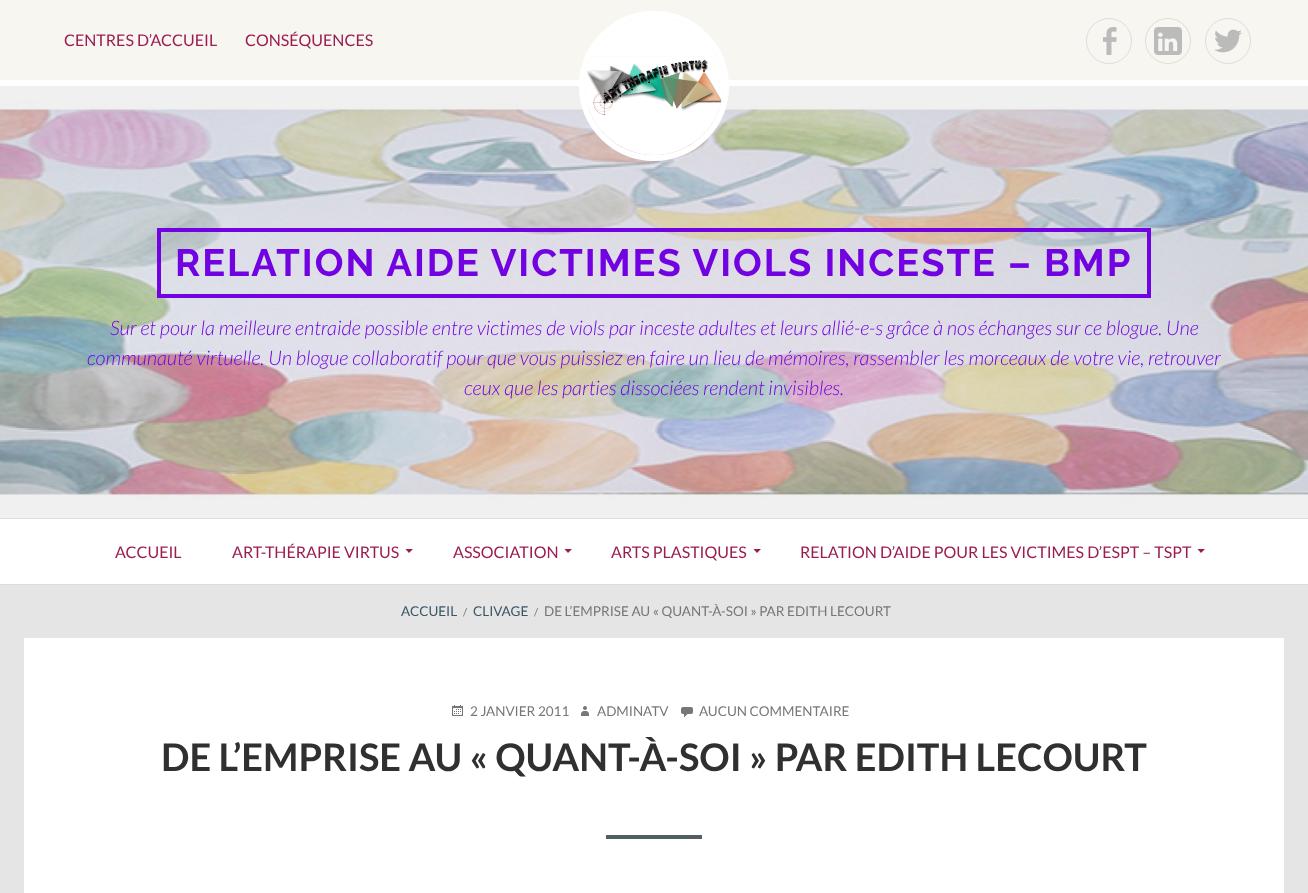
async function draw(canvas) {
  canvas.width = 1308;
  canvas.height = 893;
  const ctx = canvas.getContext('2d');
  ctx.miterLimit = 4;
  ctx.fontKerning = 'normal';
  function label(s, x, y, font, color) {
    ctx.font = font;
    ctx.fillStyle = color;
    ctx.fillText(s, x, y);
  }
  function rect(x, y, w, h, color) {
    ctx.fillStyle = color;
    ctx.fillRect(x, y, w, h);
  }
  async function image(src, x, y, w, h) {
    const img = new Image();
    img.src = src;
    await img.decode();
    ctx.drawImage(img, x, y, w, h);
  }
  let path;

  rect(0, 0, 1308, 893, '#e5e5e5');
  rect(0, 0, 1308, 80, '#f7f6f1');
  rect(0, 80, 1308, 6, '#fff');
  label('CENTRES D’ACCUEIL', 64, 46, '16px Lato', '#9b1c51');
  label('CONSÉQUENCES', 245, 46, '16px Lato', '#9b1c51');
  ctx.beginPath();
  ctx.arc(1109, 41, 22.5, 0, 2 * Math.PI);
  ctx.strokeStyle = '#ddd';
  ctx.stroke();
  await image('assets/img1.png', 1103, 27, 14, 28);
  ctx.beginPath();
  ctx.arc(1168, 41, 22.5, 0, 2 * Math.PI);
  ctx.stroke();
  await image('assets/img2.png', 1154, 27, 28, 28);
  ctx.beginPath();
  ctx.arc(1228, 41, 22.5, 0, 2 * Math.PI);
  ctx.stroke();
  await image('assets/img3.png', 1214, 29, 28, 24);
  await image('assets/img4.png', 0, 86, 1308, 432);
  rect(0, 518, 1308, 1, '#ddd');
  ctx.beginPath();
  ctx.arc(654, 86, 72, 0, 2 * Math.PI);
  ctx.strokeStyle = '#fff';
  ctx.lineWidth = 6;
  ctx.stroke();
  await image('assets/img5.png', 585, 17, 138, 138);
  ctx.strokeStyle = '#7202e2';
  ctx.lineWidth = 4;
  ctx.strokeRect(159, 230, 990, 66);
  ctx.letterSpacing = '2px';
  label('RELATION AIDE VICTIMES VIOLS INCESTE – BMP', 175, 276, 'bold 38px Raleway', '#7202e2');
  ctx.letterSpacing = '0px';
  label('Sur et pour la meilleure entraide possible entre victimes de viols par inceste adultes et leurs allié-e-s grâce à nos échanges sur ce blogue. Une', 110, 335, 'italic 300 20px Lato', '#7202e2');
  label('communauté virtuelle. Un blogue collaboratif pour que vous puissiez en faire un lieu de mémoires, rassembler les morceaux de votre vie, retrouver', 87, 365, 'italic 300 20px Lato', '#7202e2');
  label('ceux que les parties dissociées rendent invisibles.', 464, 395, 'italic 300 20px Lato', '#7202e2');
  rect(0, 519, 1308, 65, '#fff');
  rect(0, 584, 1308, 1, '#ddd');
  label('ACCUEIL', 115, 558, '16px Lato', '#9b1c51');
  label('ART-THÉRAPIE VIRTUS', 232, 558, '16px Lato', '#9b1c51');
  path = new Path2D('M405.5 549H413L409 553Z');
  ctx.fill(path);
  label('ASSOCIATION', 453, 558, '16px Lato', '#9b1c51');
  path = new Path2D('M564.5 549H572L568 553Z');
  ctx.fill(path);
  label('ARTS PLASTIQUES', 611, 558, '16px Lato', '#9b1c51');
  path = new Path2D('M753.5 549H761L757 553Z');
  ctx.fill(path);
  label('RELATION D’AIDE POUR LES VICTIMES D’ESPT – TSPT', 800, 558, '16px Lato', '#9b1c51');
  path = new Path2D('M1197.5 549H1205L1201 553Z');
  ctx.fill(path);
  label('ACCUEIL', 401, 616, '13.5px Lato', '#3b5667');
  label('/', 463, 616, '11px Lato', '#777');
  label('CLIVAGE', 473, 616, '13.5px Lato', '#3b5667');
  label('/', 534, 616, '11px Lato', '#777');
  label('DE L’EMPRISE AU « QUANT-À-SOI » PAR EDITH LECOURT', 544, 616, '13.5px Lato', '#777');
  rect(24, 638, 1260, 255, '#fff');
  await image('assets/img6.png', 452, 705, 11, 11);
  label('2 JANVIER 2011', 470, 716, '13.5px Lato', '#777');
  await image('assets/img7.png', 581, 706, 8, 10);
  label('ADMINATV', 597, 716, '13.5px Lato', '#777');
  await image('assets/img8.png', 681, 707, 12, 11);
  label('AUCUN COMMENTAIRE', 699, 716, '13.5px Lato', '#777');
  label('DE L’EMPRISE AU « QUANT-À-SOI » PAR EDITH LECOURT', 161, 771, 'bold 38px Lato', '#303030');
  rect(606, 835, 96, 4, '#525e66');
}

draw(document.querySelector('canvas'));
